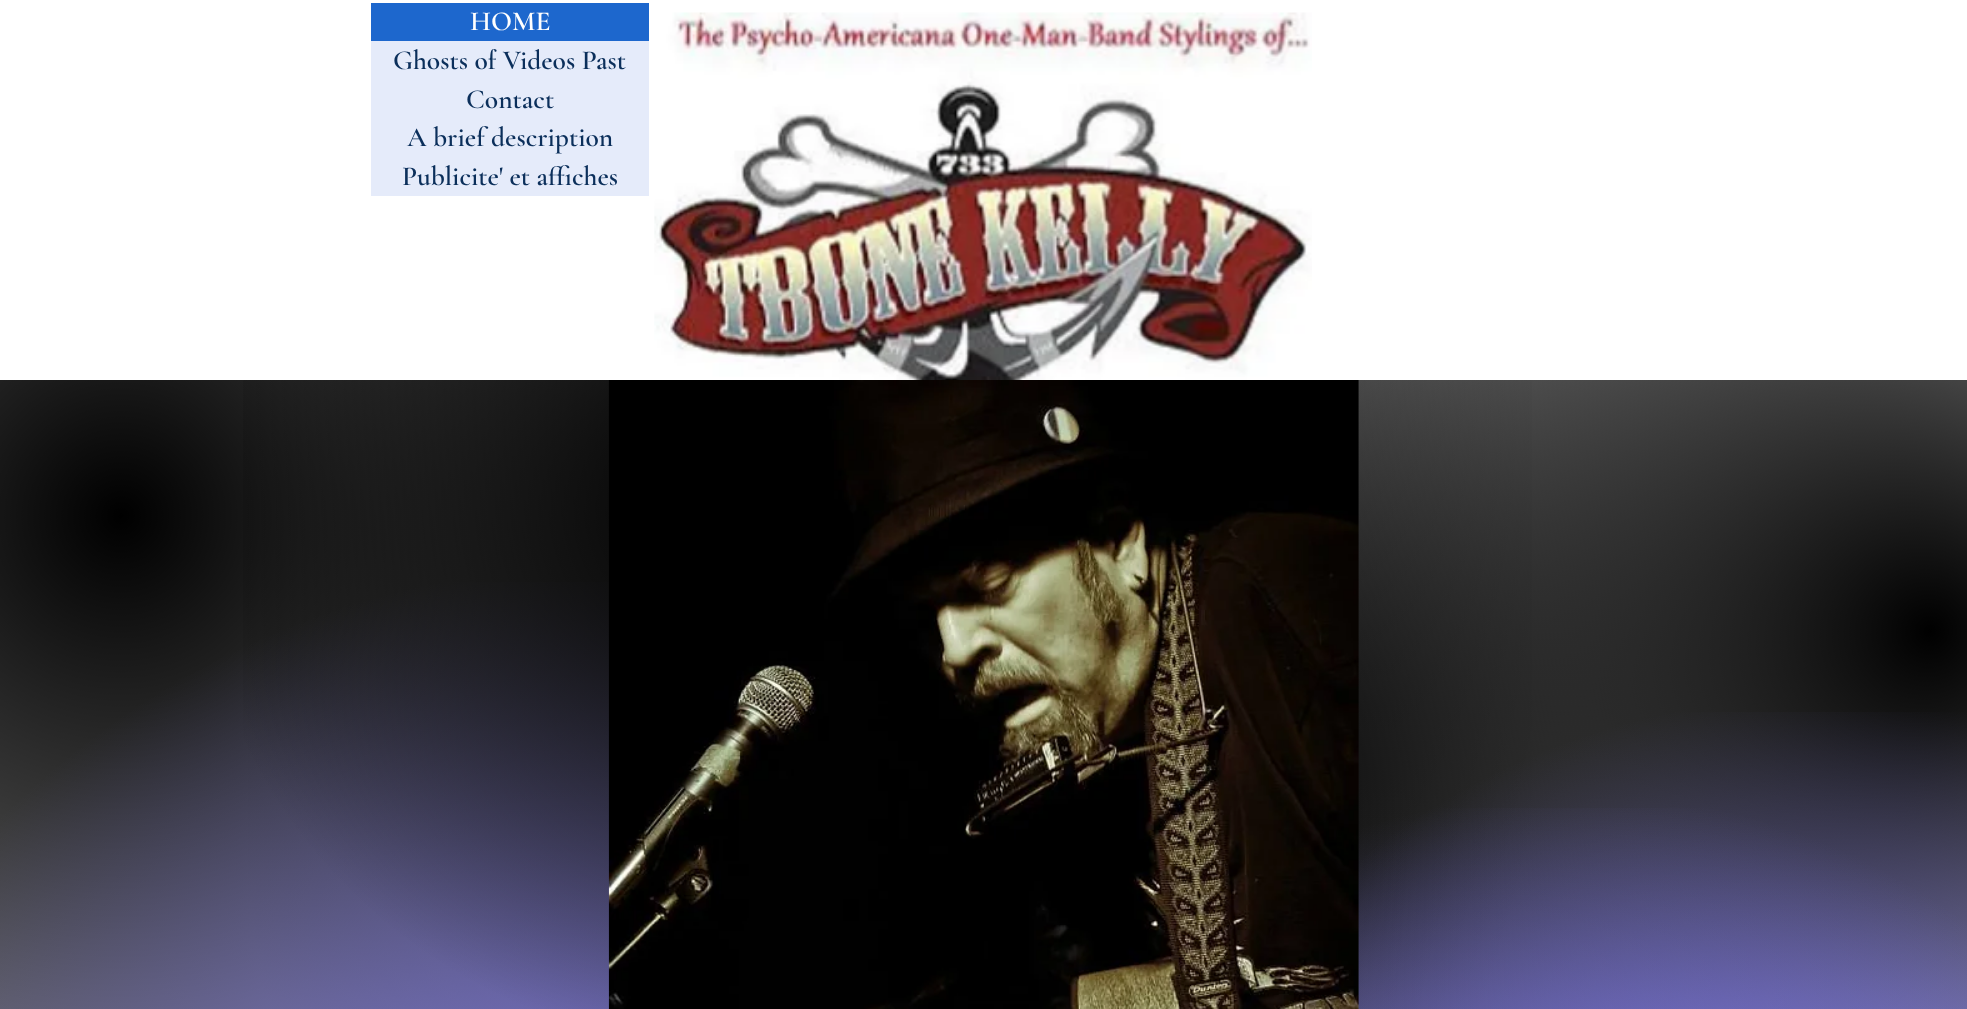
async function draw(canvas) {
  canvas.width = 1967;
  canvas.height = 1009;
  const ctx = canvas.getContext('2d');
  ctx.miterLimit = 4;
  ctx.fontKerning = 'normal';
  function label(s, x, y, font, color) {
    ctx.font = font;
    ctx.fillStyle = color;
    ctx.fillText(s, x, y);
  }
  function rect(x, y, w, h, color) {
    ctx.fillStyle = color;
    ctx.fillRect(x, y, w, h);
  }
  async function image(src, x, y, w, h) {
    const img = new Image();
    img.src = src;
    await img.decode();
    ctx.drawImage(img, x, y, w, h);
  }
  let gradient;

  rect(0, 0, 1967, 1009, '#fff');
  rect(371, 3, 278, 38, '#1d67cd');
  label('HOME', 470, 30, '600 27.5px Cormorant Garamond', '#fff');
  rect(371, 41, 278, 155, '#e5ebfa');
  label('Ghosts of Videos Past', 393, 69, '600 27.5px Cormorant Garamond', '#0b2f5b');
  label('Contact', 466, 108, '600 27.5px Cormorant Garamond', '#0b2f5b');
  label('A brief description', 407, 146, '600 27.5px Cormorant Garamond', '#0b2f5b');
  label('Publicite\' et affiches', 402, 185, '600 27.5px Cormorant Garamond', '#0b2f5b');
  await image('assets/img1.png', 654, 12, 658, 368);
  gradient = ctx.createRadialGradient(1214, 786, 0, 1214, 786, 1389);
  gradient.addColorStop(0, '#000');
  gradient.addColorStop(0.7, '#fff');
  ctx.fillStyle = gradient;
  ctx.fillRect(248, 380, 1719, 629);
  gradient = ctx.createRadialGradient(121, 516, 0, 121, 516, 2074);
  gradient.addColorStop(0, '#000');
  gradient.addColorStop(0.7, '#00000000');
  ctx.fillStyle = gradient;
  ctx.fillRect(0, 380, 1532, 629);
  gradient = ctx.createRadialGradient(607, 1421, 0, 607, 1421, 1713);
  gradient.addColorStop(0, '#8079fffc');
  gradient.addColorStop(0.5, '#8079ff00');
  ctx.fillStyle = gradient;
  ctx.fillRect(0, 582, 609, 427);
  gradient = ctx.createRadialGradient(1930, 631, 0, 1930, 631, 2101);
  gradient.addColorStop(0, '#000');
  gradient.addColorStop(0.4, '#00000000');
  ctx.fillStyle = gradient;
  ctx.fillRect(1358, 380, 609, 629);
  gradient = ctx.createRadialGradient(732, 501, 0, 732, 501, 1565);
  gradient.addColorStop(0, '#000');
  gradient.addColorStop(0.35, '#00000000');
  ctx.fillStyle = gradient;
  ctx.fillRect(243, 380, 366, 629);
  gradient = ctx.createRadialGradient(1820, 1432, 0, 1820, 1432, 2102);
  gradient.addColorStop(0, '#8079ff');
  gradient.addColorStop(0.35, '#8079ff00');
  ctx.fillStyle = gradient;
  ctx.fillRect(1358, 712, 609, 297);
  gradient = ctx.createRadialGradient(1573, 1461, 0, 1573, 1461, 1909);
  gradient.addColorStop(0, '#8079ff');
  gradient.addColorStop(0.35, '#8079ff00');
  ctx.fillStyle = gradient;
  ctx.fillRect(1358, 808, 609, 201);
  await image('assets/img2.png', 608, 380, 751, 629);
}

draw(document.querySelector('canvas'));
